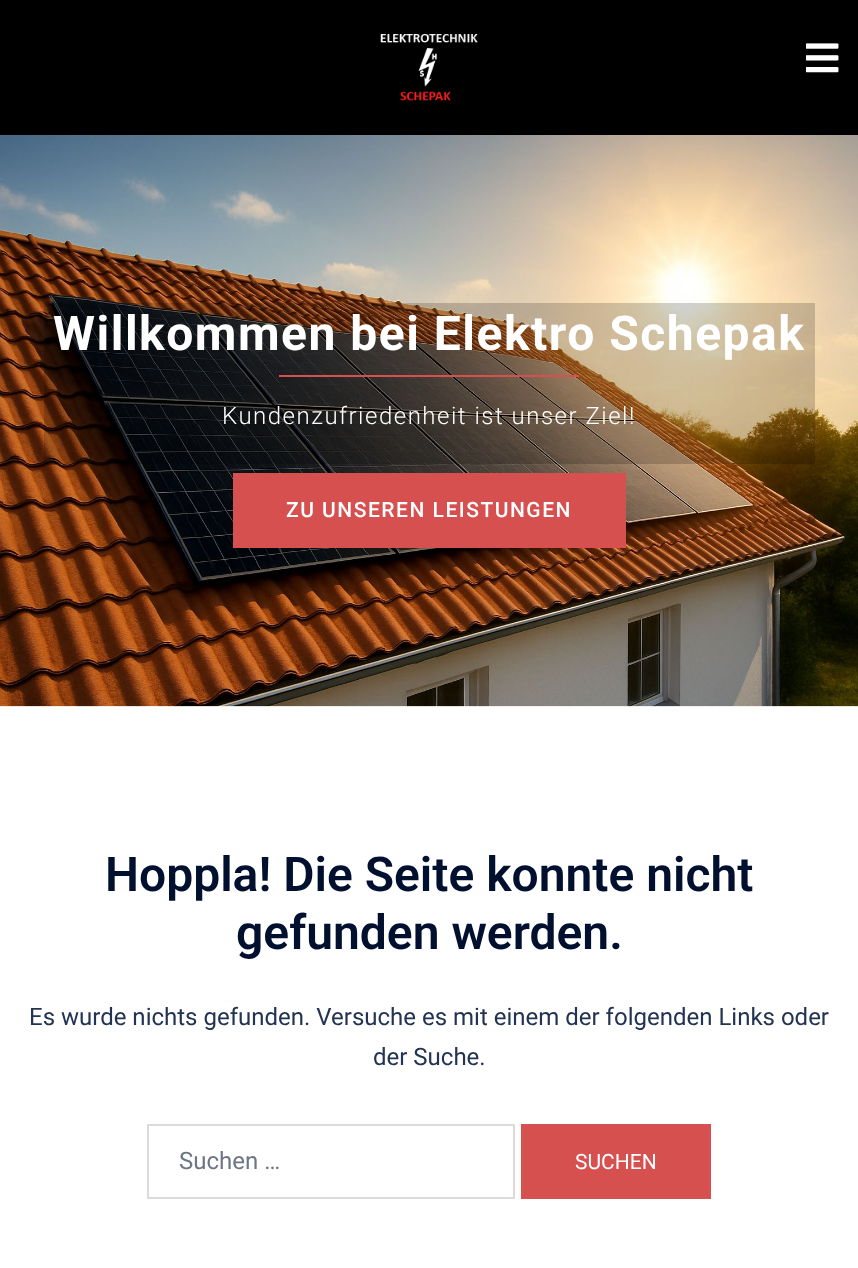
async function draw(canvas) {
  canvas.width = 858;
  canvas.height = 1268;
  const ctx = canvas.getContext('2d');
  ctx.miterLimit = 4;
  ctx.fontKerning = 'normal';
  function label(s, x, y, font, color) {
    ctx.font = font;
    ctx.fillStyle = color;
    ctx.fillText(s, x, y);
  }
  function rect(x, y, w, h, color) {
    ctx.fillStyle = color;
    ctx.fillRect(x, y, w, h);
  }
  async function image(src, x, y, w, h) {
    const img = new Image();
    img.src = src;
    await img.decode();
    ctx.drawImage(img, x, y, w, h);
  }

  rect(0, 0, 858, 1268, '#fff');
  rect(0, 0, 858, 135, '#000');
  await image('assets/img1.png', 380, 34, 98, 67);
  await image('assets/img2.png', 806, 43, 33, 30);
  await image('assets/img3.png', 0, 135, 858, 572);
  rect(44, 303, 771, 161, '#0000002e');
  ctx.letterSpacing = '1.5px';
  label('Willkommen bei Elektro Schepak', 53, 350, 'bold 48px Roboto', '#fff');
  rect(279, 375, 300, 2, '#d65050');
  label('Kundenzufriedenheit ist unser Ziel!', 222, 424, '300 24px Roboto', '#fff');
  rect(233, 473, 393, 75, '#d65050');
  label('ZU UNSEREN LEISTUNGEN', 286, 517, '500 21px Roboto', '#fff');
  ctx.letterSpacing = '0px';
  label('Hoppla! Die Seite konnte nicht', 105, 891, '600 48px Roboto', '#00102e');
  label('gefunden werden.', 236, 949, '600 48px Roboto', '#00102e');
  label('Es wurde nichts gefunden. Versuche es mit einem der folgenden Links oder', 29, 1025, '24px Roboto', '#233452');
  label('der Suche.', 373, 1065, '24px Roboto', '#233452');
  ctx.strokeStyle = '#dbdbdb';
  ctx.lineWidth = 2;
  ctx.strokeRect(148, 1125, 366, 73);
  label('Suchen …', 179, 1169, '24px Roboto', '#6d7685');
  rect(521, 1124, 190, 75, '#d65050');
  label('SUCHEN', 575, 1169, '21px Roboto', '#fff');
}

draw(document.querySelector('canvas'));
